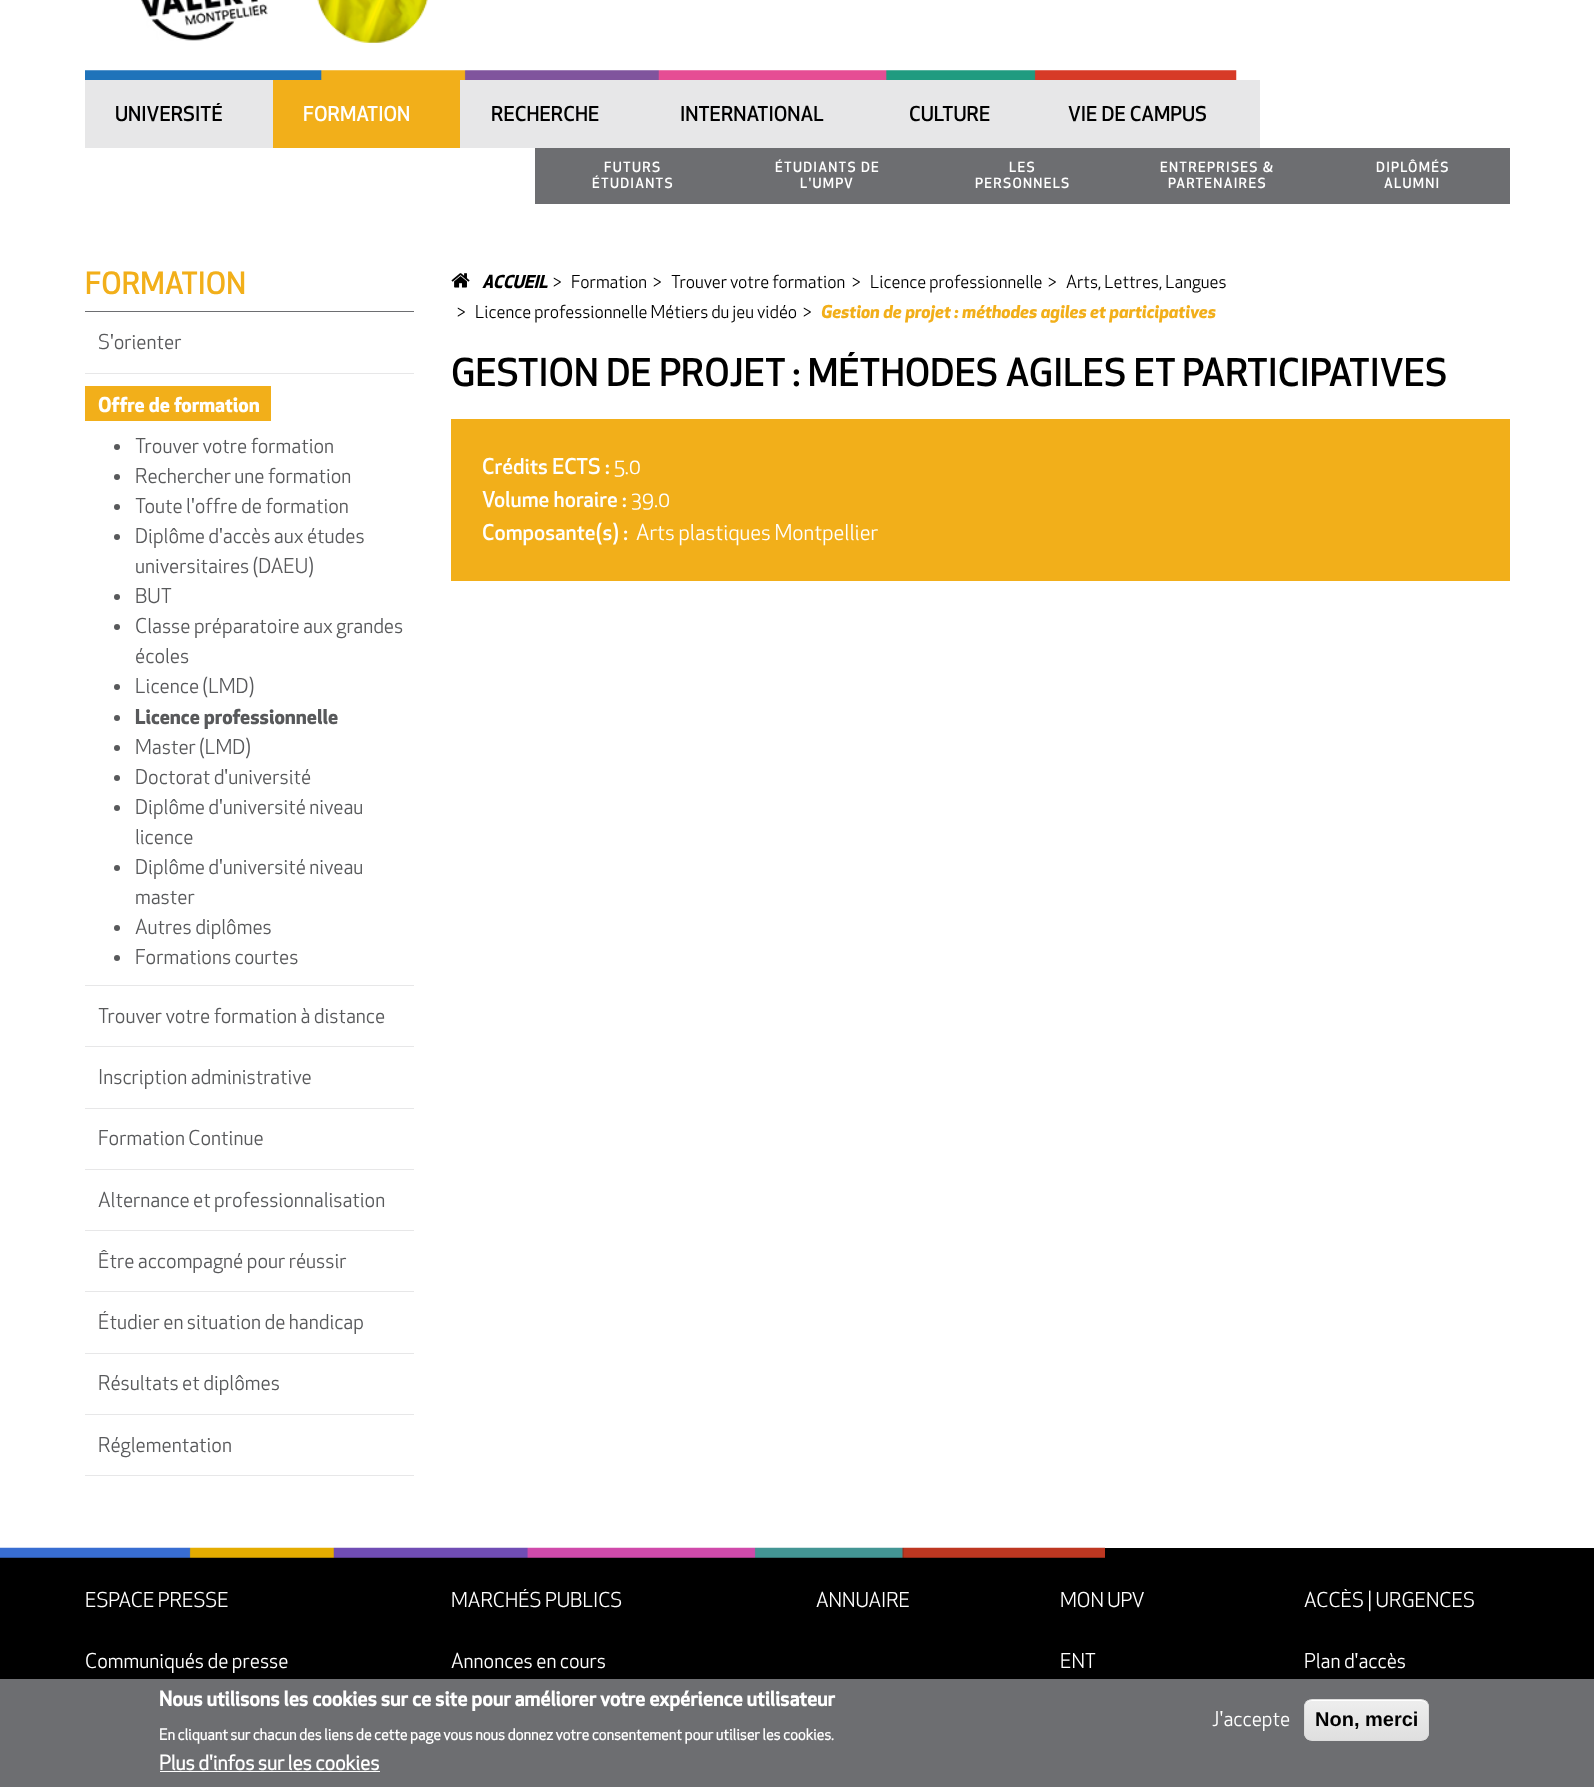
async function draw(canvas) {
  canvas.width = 1594;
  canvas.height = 1787;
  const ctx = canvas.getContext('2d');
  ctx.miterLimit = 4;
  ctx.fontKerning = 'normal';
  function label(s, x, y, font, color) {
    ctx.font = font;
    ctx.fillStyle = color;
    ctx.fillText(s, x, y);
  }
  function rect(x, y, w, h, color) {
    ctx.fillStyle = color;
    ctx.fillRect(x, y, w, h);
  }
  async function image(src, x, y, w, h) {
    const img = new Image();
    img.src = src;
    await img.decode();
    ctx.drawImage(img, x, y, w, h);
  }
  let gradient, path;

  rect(0, 0, 1594, 1787, '#fff');
  await image('assets/img1.png', 141, 0, 127, 41);
  await image('assets/img2.png', 317, 0, 111, 43);
  await image('assets/img3.png', 85, 70, 1152, 10);
  rect(85, 80, 1175, 68, '#e7e7e8');
  label('UNIVERSITÉ', 115, 121, '500 20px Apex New', '#000');
  rect(273, 80, 187, 68, '#f2af1a');
  label('FORMATION', 303, 121, '500 20px Apex New', '#fff');
  label('RECHERCHE', 491, 121, '500 20px Apex New', '#000');
  label('INTERNATIONAL', 680, 121, '500 20px Apex New', '#000');
  label('CULTURE', 909, 121, '500 20px Apex New', '#000');
  label('VIE DE CAMPUS', 1068, 121, '500 20px Apex New', '#000');
  rect(535, 148, 975, 56, '#6d6e71');
  ctx.letterSpacing = '1.25px';
  label('FUTURS', 604, 172, '500 13.75px Apex New', '#fff');
  label('ÉTUDIANTS', 592, 188, '500 13.75px Apex New', '#fff');
  label('ÉTUDIANTS DE', 775, 172, '500 13.75px Apex New', '#fff');
  label('L\'UMPV', 800, 188, '500 13.75px Apex New', '#fff');
  label('LES', 1009, 172, '500 13.75px Apex New', '#fff');
  label('PERSONNELS', 975, 188, '500 13.75px Apex New', '#fff');
  label('ENTREPRISES &', 1160, 172, '500 13.75px Apex New', '#fff');
  label('PARTENAIRES', 1168, 188, '500 13.75px Apex New', '#fff');
  label('DIPLÔMÉS', 1376, 172, '500 13.75px Apex New', '#fff');
  label('ALUMNI', 1384, 188, '500 13.75px Apex New', '#fff');
  rect(85, 311, 329, 1, '#6d6e71');
  ctx.letterSpacing = '0px';
  label('FORMATION', 85, 294, '500 30px Apex New', '#f2af1a');
  rect(85, 373, 329, 1, '#e7e7e8');
  label('S\'orienter', 98, 349, '20px Apex New', '#58595b');
  rect(85, 985, 329, 1, '#e7e7e8');
  rect(85, 386, 186, 35, '#f2af1a');
  label('Offre de formation', 98, 412, 'bold 20px Apex New', '#fff');
  ctx.fillStyle = '#58595b';
  ctx.beginPath();
  ctx.arc(117, 447, 3, 0, 2 * Math.PI);
  ctx.fill();
  label('Trouver votre formation', 135, 453, '20px Apex New', '#58595b');
  ctx.beginPath();
  ctx.arc(117, 477, 3, 0, 2 * Math.PI);
  ctx.fill();
  label('Rechercher une formation', 135, 483, '20px Apex New', '#58595b');
  ctx.beginPath();
  ctx.arc(117, 507, 3, 0, 2 * Math.PI);
  ctx.fill();
  label('Toute l\'offre de formation', 135, 513, '20px Apex New', '#58595b');
  ctx.beginPath();
  ctx.arc(117, 537, 3, 0, 2 * Math.PI);
  ctx.fill();
  label('Diplôme d\'accès aux études', 135, 543, '20px Apex New', '#58595b');
  label('universitaires (DAEU)', 135, 573, '20px Apex New', '#58595b');
  ctx.beginPath();
  ctx.arc(117, 597, 3, 0, 2 * Math.PI);
  ctx.fill();
  label('BUT', 135, 603, '20px Apex New', '#58595b');
  ctx.beginPath();
  ctx.arc(117, 627, 3, 0, 2 * Math.PI);
  ctx.fill();
  label('Classe préparatoire aux grandes', 135, 633, '20px Apex New', '#58595b');
  label('écoles', 135, 663, '20px Apex New', '#58595b');
  ctx.beginPath();
  ctx.arc(117, 687, 3, 0, 2 * Math.PI);
  ctx.fill();
  label('Licence (LMD)', 135, 693, '20px Apex New', '#58595b');
  ctx.beginPath();
  ctx.arc(117, 718, 3, 0, 2 * Math.PI);
  ctx.fill();
  label('Licence professionnelle', 135, 724, 'bold 20px Apex New', '#58595b');
  ctx.beginPath();
  ctx.arc(117, 748, 3, 0, 2 * Math.PI);
  ctx.fill();
  label('Master (LMD)', 135, 754, '20px Apex New', '#58595b');
  ctx.beginPath();
  ctx.arc(117, 778, 3, 0, 2 * Math.PI);
  ctx.fill();
  label('Doctorat d\'université', 135, 784, '20px Apex New', '#58595b');
  ctx.beginPath();
  ctx.arc(117, 808, 3, 0, 2 * Math.PI);
  ctx.fill();
  label('Diplôme d\'université niveau', 135, 814, '20px Apex New', '#58595b');
  label('licence', 135, 844, '20px Apex New', '#58595b');
  ctx.beginPath();
  ctx.arc(117, 868, 3, 0, 2 * Math.PI);
  ctx.fill();
  label('Diplôme d\'université niveau', 135, 874, '20px Apex New', '#58595b');
  label('master', 135, 904, '20px Apex New', '#58595b');
  ctx.beginPath();
  ctx.arc(117, 928, 3, 0, 2 * Math.PI);
  ctx.fill();
  label('Autres diplômes', 135, 934, '20px Apex New', '#58595b');
  ctx.beginPath();
  ctx.arc(117, 958, 3, 0, 2 * Math.PI);
  ctx.fill();
  label('Formations courtes', 135, 964, '20px Apex New', '#58595b');
  rect(85, 1046, 329, 1, '#e7e7e8');
  label('Trouver votre formation à distance', 98, 1023, '20px Apex New', '#58595b');
  rect(85, 1108, 329, 1, '#e7e7e8');
  label('Inscription administrative', 98, 1084, '20px Apex New', '#58595b');
  rect(85, 1169, 329, 1, '#e7e7e8');
  label('Formation Continue', 98, 1145, '20px Apex New', '#58595b');
  rect(85, 1230, 329, 1, '#e7e7e8');
  label('Alternance et professionnalisation', 98, 1207, '20px Apex New', '#58595b');
  rect(85, 1291, 329, 1, '#e7e7e8');
  label('Être accompagné pour réussir', 98, 1268, '20px Apex New', '#58595b');
  rect(85, 1353, 329, 1, '#e7e7e8');
  label('Étudier en situation de handicap', 98, 1329, '20px Apex New', '#58595b');
  rect(85, 1414, 329, 1, '#e7e7e8');
  label('Résultats et diplômes', 98, 1390, '20px Apex New', '#58595b');
  rect(85, 1475, 329, 1, '#e7e7e8');
  label('Réglementation', 98, 1452, '20px Apex New', '#58595b');
  await image('assets/img4.png', 451, 273, 19, 15);
  label('ACCUEIL', 482, 288, 'italic bold 17.5px Apex New', '#000');
  label('>', 553, 288, '17.5px Apex New', '#000');
  label('Formation', 571, 288, '17.5px Apex New', '#000');
  label('>', 653, 288, '17.5px Apex New', '#000');
  label('Trouver votre formation', 671, 288, '17.5px Apex New', '#000');
  label('>', 852, 288, '17.5px Apex New', '#000');
  label('Licence professionnelle', 870, 288, '17.5px Apex New', '#000');
  label('>', 1048, 288, '17.5px Apex New', '#000');
  label('Arts, Lettres, Langues', 1066, 288, '17.5px Apex New', '#000');
  label('>', 457, 318, '17.5px Apex New', '#000');
  label('Licence professionnelle Métiers du jeu vidéo', 475, 318, '17.5px Apex New', '#000');
  label('>', 803, 318, '17.5px Apex New', '#000');
  label('Gestion de projet : méthodes agiles et participatives', 821, 318, 'italic bold 17.5px "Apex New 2"', '#f2af1a');
  label('GESTION DE PROJET : MÉTHODES AGILES ET PARTICIPATIVES', 451, 386, '500 37.5px Apex New', '#000');
  rect(451, 419, 1059, 162, '#f2af1a');
  label('Crédits ECTS :', 482, 474, '500 21.25px Apex New', '#fff');
  label('5.0', 614, 474, '21.25px Apex New', '#fff');
  label('Volume horaire :', 482, 507, '500 21.25px Apex New', '#fff');
  label('39.0', 631, 507, '21.25px Apex New', '#fff');
  label('Composante(s) :', 482, 540, '500 21.25px Apex New', '#fff');
  label('Arts plastiques Montpellier', 636, 540, '21.25px Apex New', '#fff');
  rect(0, 1548, 1594, 131, '#000');
  await image('assets/img5.png', 0, 1547, 1105, 11);
  label('ESPACE PRESSE', 85, 1607, '20px Apex New', '#fff');
  label('Communiqués de presse', 85, 1668, '20px Apex New', '#fff');
  label('MARCHÉS PUBLICS', 451, 1607, '20px Apex New', '#fff');
  label('Annonces en cours', 451, 1668, '20px Apex New', '#fff');
  label('ANNUAIRE', 816, 1607, '20px Apex New', '#fff');
  label('MON UPV', 1060, 1607, '20px Apex New', '#fff');
  label('ENT', 1060, 1668, '20px Apex New', '#fff');
  label('ACCÈS | URGENCES', 1304, 1607, '20px Apex New', '#fff');
  label('Plan d\'accès', 1304, 1668, '20px Apex New', '#fff');
  rect(0, 1679, 1594, 108, '#6d6e71');
  label('Nous utilisons les cookies sur ce site pour améliorer votre expérience utilisateur', 159, 1706, 'bold 20px "Apex New 2"', '#fff');
  label('En cliquant sur chacun des liens de cette page vous nous donnez votre consentement pour utiliser les cookies.', 159, 1740, 'bold 15px "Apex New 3"', '#fff');
  label('Plus d\'infos sur les cookies', 159, 1770, 'bold 20px "Apex New 3"', '#fff');
  rect(160, 1771, 220, 1, '#fff');
  label('J\'accepte', 1212, 1726, '20px Apex New', '#fff');
  ctx.save();
  ctx.beginPath();
  ctx.roundRect(1304, 1699, 125, 42, 8);
  ctx.clip();
  gradient = ctx.createLinearGradient(1366, 1700, 1366, 1740);
  gradient.addColorStop(0.05, '#ededed');
  gradient.addColorStop(1, '#dfdfdf');
  ctx.fillStyle = gradient;
  ctx.fillRect(1304, 1700, 125, 40);
  ctx.restore();
  path = new Path2D('M1311 1701H1421C1425 1701 1428 1704 1428 1708V1706C1428 1703 1425 1700 1422 1700H1311C1308 1700 1305 1703 1305 1706V1708C1305 1704 1308 1701 1311 1701Z');
  ctx.fill(path);
  ctx.beginPath();
  ctx.roundRect(1304.5, 1699.5, 124, 41, 7.5);
  ctx.strokeStyle = '#dcdcdc';
  ctx.stroke();
  label('Non, merci', 1315, 1726, 'bold 20px Liberation Sans', '#000');
}

draw(document.querySelector('canvas'));
